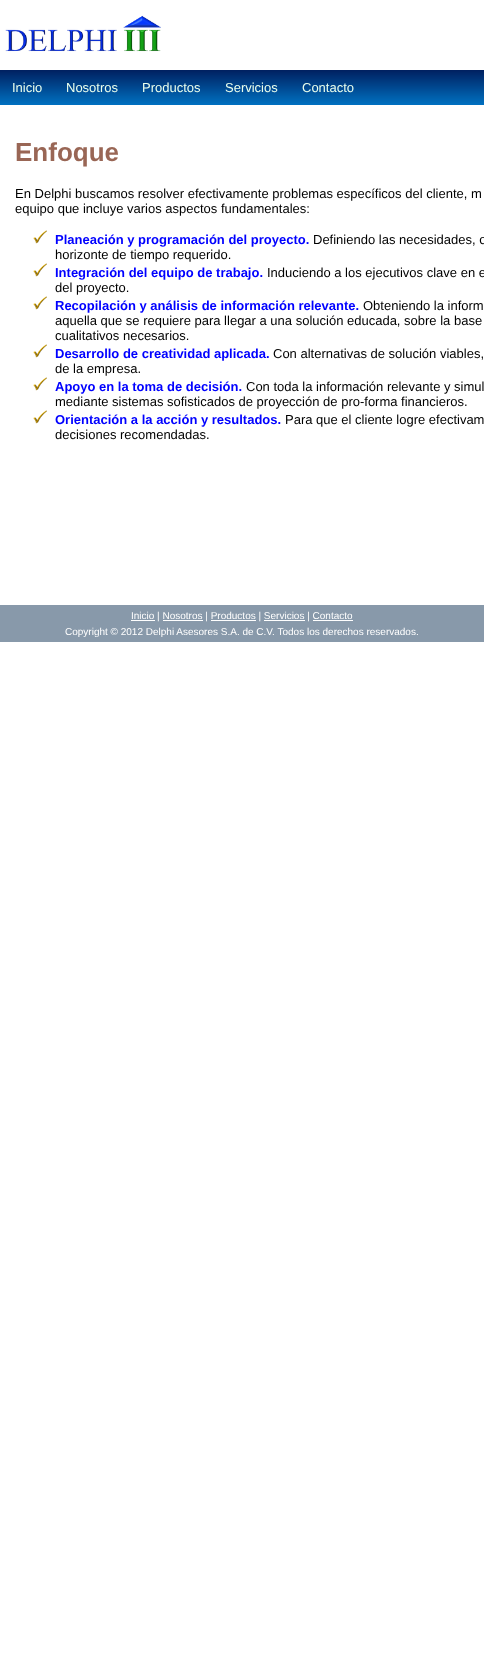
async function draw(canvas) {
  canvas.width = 484;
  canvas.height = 1677;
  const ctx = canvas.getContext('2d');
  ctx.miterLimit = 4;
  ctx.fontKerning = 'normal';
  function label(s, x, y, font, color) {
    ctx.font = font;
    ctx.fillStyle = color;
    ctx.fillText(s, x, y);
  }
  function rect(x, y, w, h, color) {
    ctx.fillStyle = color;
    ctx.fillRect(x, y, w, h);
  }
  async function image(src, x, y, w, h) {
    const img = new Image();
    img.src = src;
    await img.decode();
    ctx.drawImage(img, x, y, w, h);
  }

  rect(0, 0, 484, 1677, '#fff');
  await image('assets/img1.png', 5, 15, 156, 37);
  await image('assets/img2.png', 366, 70, 118, 35);
  await image('assets/img3.png', 0, 70, 54, 35);
  label('Inicio', 12, 92, '13px Liberation Sans', '#eaffed');
  await image('assets/img4.png', 54, 70, 76, 35);
  label('Nosotros', 66, 92, '13px Liberation Sans', '#eaffed');
  await image('assets/img5.png', 130, 70, 83, 35);
  label('Productos', 142, 92, '13px Liberation Sans', '#eaffed');
  await image('assets/img6.png', 213, 70, 77, 35);
  label('Servicios', 225, 92, '13px Liberation Sans', '#eaffed');
  await image('assets/img4.png', 290, 70, 76, 35);
  label('Contacto', 302, 92, '13px Liberation Sans', '#eaffed');
  label('Enfoque', 15, 161, 'bold 26px Liberation Sans', '#965');
  label('En Delphi buscamos resolver efectivamente problemas específicos del cliente, m', 15, 198, '13px Liberation Sans', '#000');
  label('equipo que incluye varios aspectos fundamentales:', 15, 213, '13px Liberation Sans', '#000');
  await image('assets/img7.png', 33, 230, 14, 14);
  label('Planeación y programación del proyecto.', 55, 244, 'bold 13px Liberation Sans', '#00f');
  label('Definiendo las necesidades, o', 313, 244, '13px Liberation Sans', '#000');
  label('horizonte de tiempo requerido.', 55, 259, '13px Liberation Sans', '#000');
  await image('assets/img7.png', 33, 263, 14, 14);
  label('Integración del equipo de trabajo.', 55, 277, 'bold 13px Liberation Sans', '#00f');
  label('Induciendo a los ejecutivos clave en e', 267, 277, '13px Liberation Sans', '#000');
  label('del proyecto.', 55, 292, '13px Liberation Sans', '#000');
  await image('assets/img7.png', 33, 296, 14, 14);
  label('Recopilación y análisis de información relevante.', 55, 310, 'bold 13px Liberation Sans', '#00f');
  label('Obteniendo la inform', 363, 310, '13px Liberation Sans', '#000');
  label('aquella que se requiere para llegar a una solución educada, sobre la base', 55, 325, '13px Liberation Sans', '#000');
  label('cualitativos necesarios.', 55, 340, '13px Liberation Sans', '#000');
  await image('assets/img7.png', 33, 344, 14, 14);
  label('Desarrollo de creatividad aplicada.', 55, 358, 'bold 13px Liberation Sans', '#00f');
  label('Con alternativas de solución viables,', 273, 358, '13px Liberation Sans', '#000');
  label('de la empresa.', 55, 373, '13px Liberation Sans', '#000');
  await image('assets/img7.png', 33, 377, 14, 14);
  label('Apoyo en la toma de decisión.', 55, 391, 'bold 13px Liberation Sans', '#00f');
  label('Con toda la información relevante y simul', 246, 391, '13px Liberation Sans', '#000');
  label('mediante sistemas sofisticados de proyección de pro-forma financieros.', 55, 406, '13px Liberation Sans', '#000');
  await image('assets/img7.png', 33, 410, 14, 14);
  label('Orientación a la acción y resultados.', 55, 424, 'bold 13px Liberation Sans', '#00f');
  label('Para que el cliente logre efectivam', 285, 424, '13px Liberation Sans', '#000');
  label('decisiones recomendadas.', 55, 439, '13px Liberation Sans', '#000');
  rect(0, 605, 484, 37, '#89a');
  rect(131, 620, 24, 1, '#fff');
  label('Inicio | Nosotros | Productos | Servicios | Contacto', 131, 619, '10px Liberation Sans', '#fff');
  rect(163, 620, 40, 1, '#fff');
  rect(211, 620, 45, 1, '#fff');
  rect(264, 620, 41, 1, '#fff');
  rect(313, 620, 40, 1, '#fff');
  label('Copyright © 2012 Delphi Asesores S.A. de C.V. Todos los derechos reservados.', 65, 635, '10px Liberation Sans', '#fff');
}

draw(document.querySelector('canvas'));
